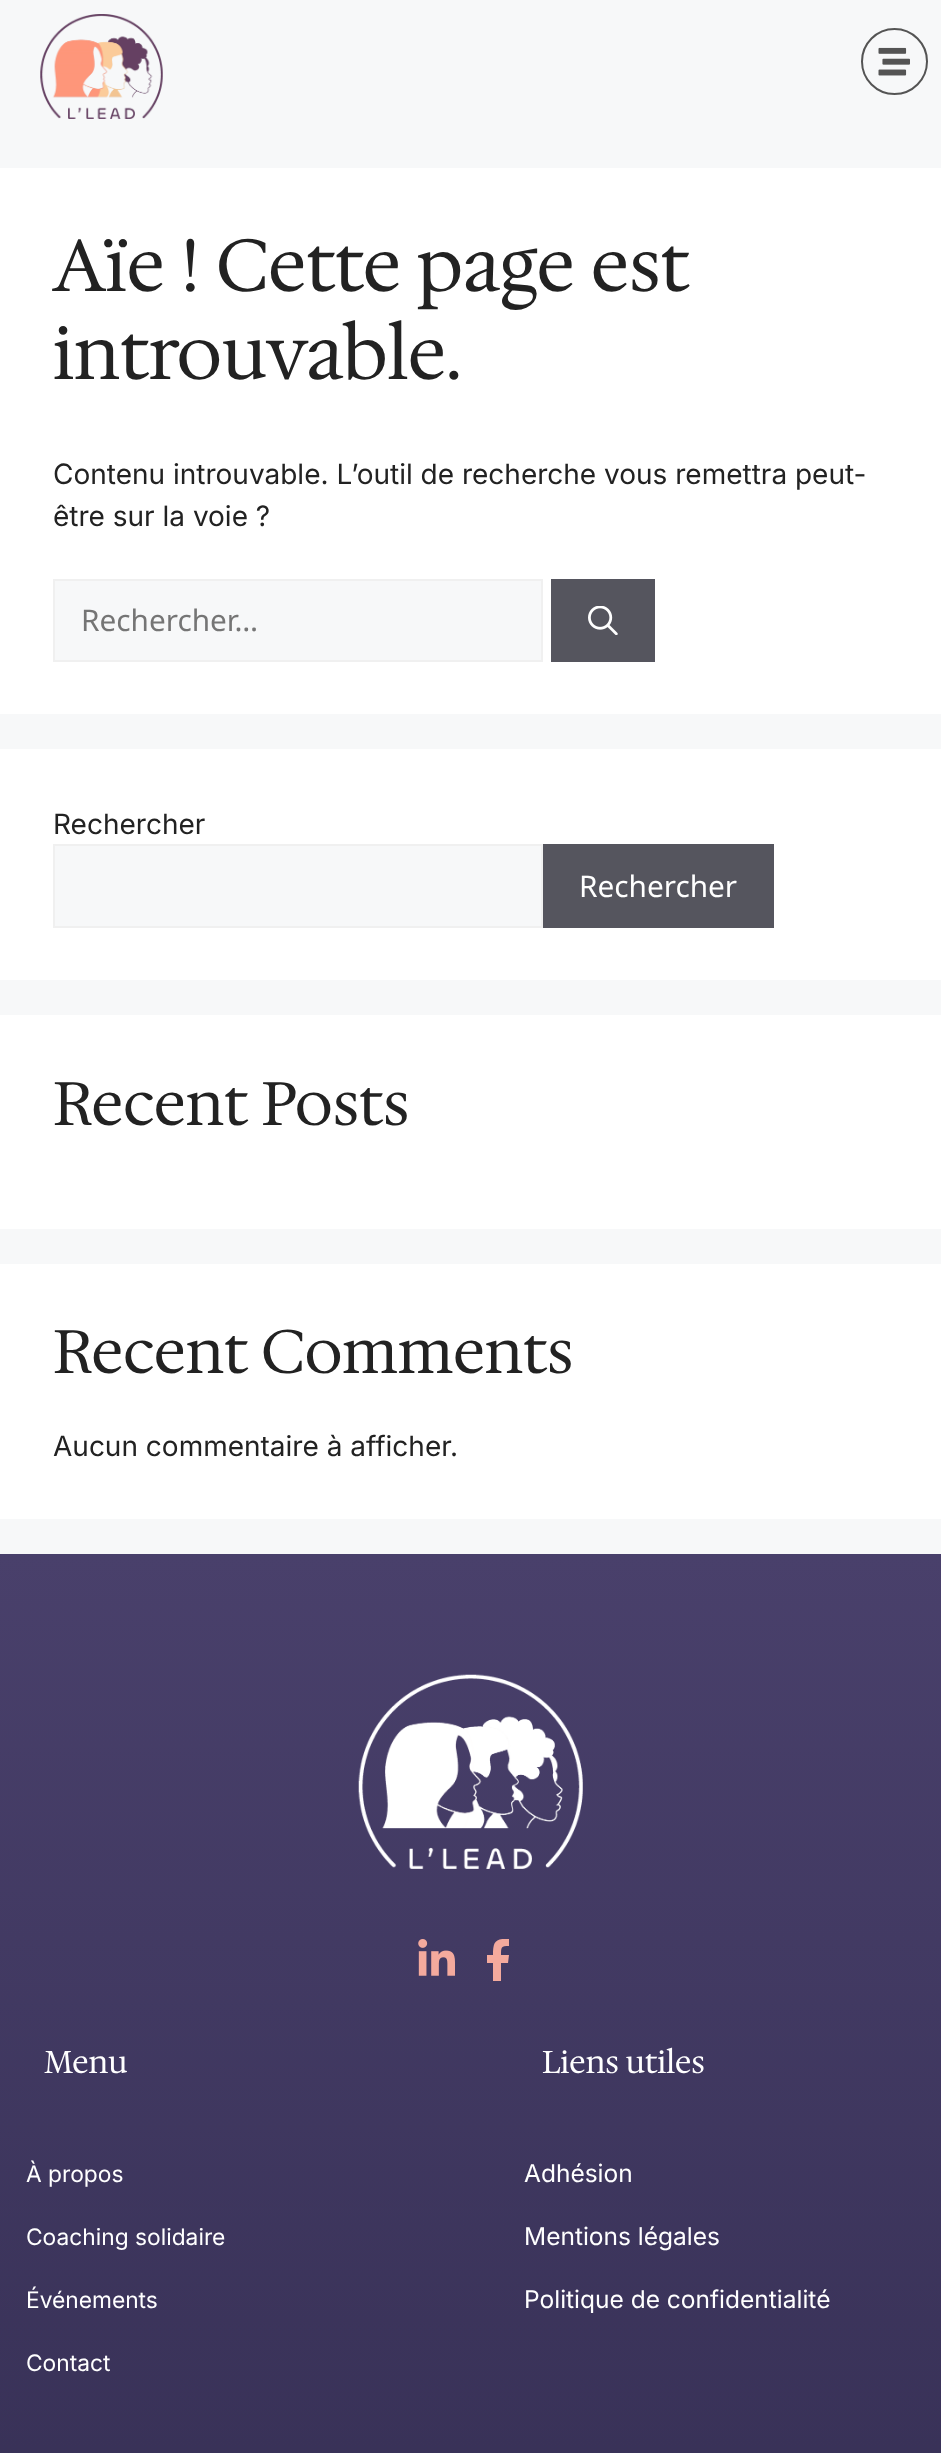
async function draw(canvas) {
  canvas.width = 941;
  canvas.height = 2453;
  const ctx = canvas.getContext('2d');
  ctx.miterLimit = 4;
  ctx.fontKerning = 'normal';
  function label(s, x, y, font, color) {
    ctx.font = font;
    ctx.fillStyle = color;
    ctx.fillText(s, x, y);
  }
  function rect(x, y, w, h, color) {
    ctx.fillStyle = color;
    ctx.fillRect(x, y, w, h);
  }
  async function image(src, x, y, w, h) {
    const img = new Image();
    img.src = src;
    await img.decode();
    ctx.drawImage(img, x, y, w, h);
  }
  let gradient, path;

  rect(0, 0, 941, 2453, '#f7f8f9');
  await image('assets/img1.png', 40, 14, 123, 105);
  ctx.beginPath();
  ctx.arc(894.5, 61.5, 32.5, 0, 2 * Math.PI);
  ctx.strokeStyle = '#545454';
  ctx.lineWidth = 2;
  ctx.stroke();
  await image('assets/img2.png', 878, 47, 32, 29);
  rect(0, 168, 941, 546, '#fff');
  label('Aïe ! Cette page est', 53, 291, '73.5px Hedvig Letters Serif', '#222');
  label('introuvable.', 53, 379, '73.5px Hedvig Letters Serif', '#222');
  label('Contenu introuvable. L’outil de recherche vous remettra peut-', 53, 484, '28px Inter', '#222');
  label('être sur la voie ?', 53, 526, '28px Inter', '#222');
  ctx.fillStyle = '#f7f8f9';
  ctx.beginPath();
  ctx.rect(54, 580, 488, 81);
  ctx.fill();
  ctx.strokeStyle = '#f0f0f0';
  ctx.stroke();
  label('Rechercher…', 81, 631, '29.75px Noto Sans', '#757575');
  rect(551, 579, 104, 83, '#55555e');
  await image('assets/img3.png', 588, 606, 30, 29);
  rect(0, 749, 941, 231, '#fff');
  label('Rechercher', 53, 834, '28px Inter', '#222');
  ctx.fillStyle = '#f7f8f9';
  ctx.beginPath();
  ctx.rect(54, 845, 488, 82);
  ctx.fill();
  ctx.stroke();
  rect(543, 844, 231, 84, '#55555e');
  label('Rechercher', 579, 897, '29.75px Noto Sans', '#fff');
  rect(0, 1015, 941, 214, '#fff');
  label('Recent Posts', 53, 1125, '61.25px Hedvig Letters Serif', '#222');
  rect(0, 1264, 941, 255, '#fff');
  label('Recent Comments', 53, 1373, '61.25px Hedvig Letters Serif', '#222');
  label('Aucun commentaire à afficher.', 53, 1456, '28px Inter', '#222');
  gradient = ctx.createLinearGradient(471, 1554, 471, 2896);
  gradient.addColorStop(0, '#49406b');
  gradient.addColorStop(1, '#312b4f');
  ctx.fillStyle = gradient;
  ctx.fillRect(0, 1554, 941, 899);
  await image('assets/img4.png', 358, 1674, 225, 195);
  await image('assets/img5.png', 418, 1939, 37, 37);
  ctx.save();
  ctx.beginPath();
  ctx.rect(410, 1939, 122, 42);
  ctx.clip();
  ctx.fillStyle = '#f4aa9d';
  path = new Path2D('M508 1963H501V1981H493V1963H487V1955H493C493 1942 495 1938 509 1939V1946C501 1946 501 1947 501 1955H509Z');
  ctx.fill(path);
  ctx.restore();
  label('Menu', 44, 2073, '31.5px Hedvig Letters Serif', '#fff');
  label('À propos', 26, 2182, '22.75px Inter', '#fff');
  label('Coaching solidaire', 26, 2245, '22.75px Inter', '#fff');
  label('Événements', 26, 2308, '22.75px Inter', '#fff');
  label('Contact', 26, 2371, '22.75px Inter', '#fff');
  label('Liens utiles', 542, 2073, '31.5px Hedvig Letters Serif', '#fff');
  label('Adhésion', 524, 2182, '24.5px Inter', '#fff');
  label('Mentions légales', 524, 2245, '24.5px Inter', '#fff');
  label('Politique de confidentialité', 524, 2308, '24.5px Inter', '#fff');
}

draw(document.querySelector('canvas'));
